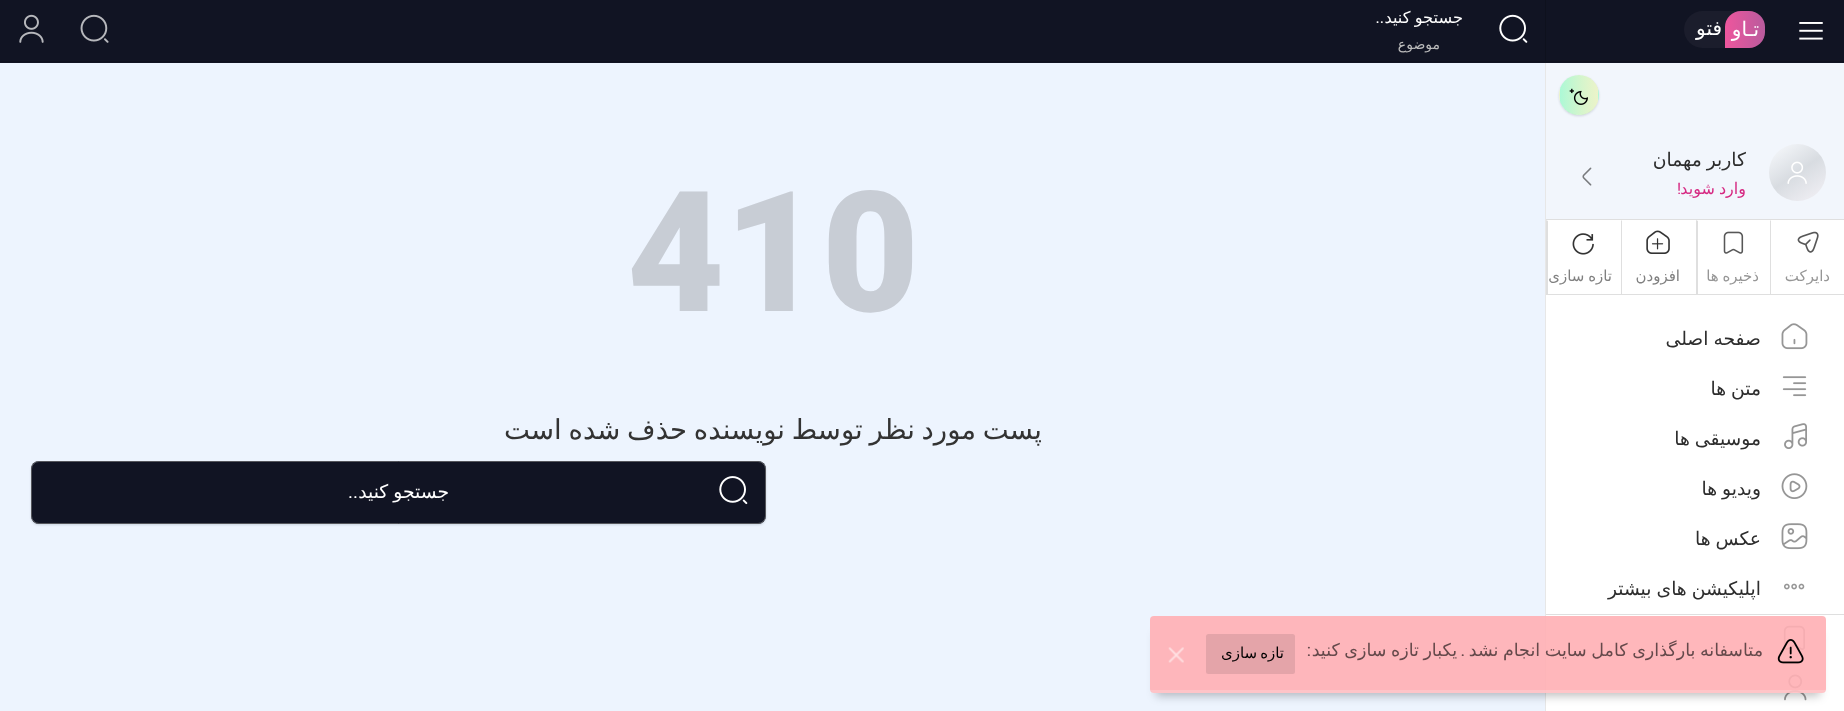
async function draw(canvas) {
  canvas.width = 1844;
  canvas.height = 711;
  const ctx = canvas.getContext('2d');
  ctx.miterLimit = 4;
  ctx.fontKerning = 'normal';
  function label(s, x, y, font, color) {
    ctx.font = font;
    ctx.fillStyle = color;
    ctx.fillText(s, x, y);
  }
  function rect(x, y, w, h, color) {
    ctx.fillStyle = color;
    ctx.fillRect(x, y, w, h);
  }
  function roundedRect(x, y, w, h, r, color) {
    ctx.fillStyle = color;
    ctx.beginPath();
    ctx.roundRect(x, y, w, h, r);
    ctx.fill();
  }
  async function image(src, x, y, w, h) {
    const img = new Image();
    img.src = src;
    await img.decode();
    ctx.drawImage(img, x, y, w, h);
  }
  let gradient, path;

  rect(0, 0, 1844, 711, '#edf4fe');
  rect(0, 0, 1844, 63, '#111423');
  rect(0, 61, 1844, 1, '#0e111e');
  await image('assets/img1.png', 1799, 22, 24, 18);
  roundedRect(1684, 11, 81, 37, 18.5, '#1b1d2c');
  gradient = ctx.createLinearGradient(1725, 29, 1765, 29);
  gradient.addColorStop(0, '#ee569d');
  gradient.addColorStop(1, '#b95b9d');
  ctx.fillStyle = gradient;
  ctx.beginPath();
  ctx.roundRect(1725, 11, 40, 37, [16, 16, 16, 0]);
  ctx.fill();
  ctx.direction = 'rtl';
  label('تـاو', 1759, 36, '20px DejaVu Sans', '#fff');
  label('فتو', 1722, 35, '20px DejaVu Sans', '#fff');
  await image('assets/img2.png', 80, 14, 29, 29);
  await image('assets/img3.png', 19, 14, 25, 29);
  rect(1545, 0, 1, 61, '#0e111d');
  await image('assets/img4.png', 1499, 14, 29, 29);
  ctx.wordSpacing = '-1px';
  label('جستجو کنید', 1463, 23, '16.25px DejaVu Sans', '#fff');
  ctx.wordSpacing = '0px';
  label('..', 1384, 23, '16.25px Roboto', '#fff');
  label('موضوع', 1440, 49, '14px DejaVu Sans', '#bcbcbc');
  rect(1546, 220, 298, 491, '#fff');
  rect(1545, 63, 1, 648, '#e7e7e7');
  rect(1546, 63, 298, 156, '#f2f6fc');
  rect(1546, 219, 298, 1, '#dfdfdf');
  ctx.save();
  path = new Path2D('M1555 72H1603V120H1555ZM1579 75C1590 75 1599 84 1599 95C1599 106 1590 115 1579 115C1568 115 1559 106 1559 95C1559 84 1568 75 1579 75Z');
  ctx.clip(path, 'evenodd');
  ctx.fillStyle = '#10232f26';
  ctx.filter = 'blur(1px)';
  ctx.beginPath();
  ctx.roundRect(1559, 76, 40, 40, 20);
  ctx.fill();
  ctx.filter = 'none';
  ctx.restore();
  ctx.save();
  ctx.beginPath();
  ctx.roundRect(1559, 75, 40, 40, 20);
  ctx.clip();
  gradient = ctx.createLinearGradient(1523, 95, 1560, 95);
  gradient.addColorStop(0, '#acf8d6');
  gradient.addColorStop(1, '#ebf3c9');
  ctx.fillStyle = gradient;
  ctx.fillRect(1559, 89, 1, 12);
  gradient = ctx.createLinearGradient(1560, 95, 1598, 95);
  gradient.addColorStop(0, '#00ff7a4a');
  gradient.addColorStop(1, '#d1ea0033');
  ctx.fillStyle = gradient;
  ctx.fillRect(1560, 75, 38, 40);
  gradient = ctx.createLinearGradient(1598, 95, 1635, 95);
  gradient.addColorStop(0, '#00ff7a4a');
  gradient.addColorStop(1, '#d1ea0033');
  ctx.fillStyle = gradient;
  ctx.fillRect(1598, 89, 1, 12);
  ctx.restore();
  await image('assets/img5.png', 1569, 88, 19, 17);
  gradient = ctx.createLinearGradient(1775, 140, 1820, 205);
  gradient.addColorStop(0, '#f9fbfe');
  gradient.addColorStop(0.5, '#d8dce1');
  gradient.addColorStop(1, '#f4f2f7');
  ctx.fillStyle = gradient;
  ctx.beginPath();
  ctx.arc(1797.5, 172.5, 28.5, 0, 2 * Math.PI);
  ctx.fill();
  await image('assets/img6.png', 1787, 161, 20, 23);
  ctx.wordSpacing = '-1px';
  label('کاربر مهمان', 1746, 166, '18.75px DejaVu Sans', '#2d2d2d');
  label('وارد شوید', 1746, 194, '16px DejaVu Sans', '#d62982');
  ctx.wordSpacing = '0px';
  label('!', 1681, 194, '16px Roboto', '#d62982');
  await image('assets/img7.png', 1582, 167, 10, 19);
  rect(1546, 294, 298, 1, '#dfdfdf');
  path = new Path2D('M1770 295V220L1771 221V294Z');
  ctx.fill(path);
  await image('assets/img8.png', 1797, 231, 22, 22);
  label('دایرکت', 1830, 281, '15px DejaVu Sans', '#969696');
  ctx.fillStyle = '#dfdfdf';
  path = new Path2D('M1696 295V220L1698 221V294Z');
  ctx.fill(path);
  await image('assets/img9.png', 1723, 231, 21, 23);
  ctx.wordSpacing = '-1px';
  label('ذخیره ها', 1759, 281, '15px DejaVu Sans', '#969696');
  ctx.fillStyle = '#dfdfdf';
  path = new Path2D('M1621 295V220L1622 221V294Z');
  ctx.fill(path);
  await image('assets/img10.png', 1646, 230, 24, 24);
  ctx.wordSpacing = '0px';
  label('افزودن', 1680, 281, '15px DejaVu Sans', '#808080');
  ctx.fillStyle = '#dfdfdf';
  path = new Path2D('M1546 295V220L1548 221V294Z');
  ctx.fill(path);
  await image('assets/img11.png', 1572, 233, 22, 22);
  ctx.wordSpacing = '-1px';
  label('تازه سازی', 1612, 281, '15px DejaVu Sans', '#808080');
  rect(1546, 614, 298, 1, '#dfdfdf');
  await image('assets/img12.png', 1781, 323, 27, 27);
  label('صفحه اصلی', 1761, 345, '18.75px DejaVu Sans', '#2d2d2d');
  await image('assets/img13.png', 1782, 376, 25, 21);
  label('متن ها', 1761, 395, '18.75px DejaVu Sans', '#2d2d2d');
  await image('assets/img14.png', 1784, 423, 23, 26);
  label('موسیقی ها', 1761, 445, '18.75px DejaVu Sans', '#2d2d2d');
  await image('assets/img15.png', 1781, 473, 27, 26);
  label('ویدیو ها', 1761, 495, '18.75px DejaVu Sans', '#2d2d2d');
  await image('assets/img16.png', 1781, 523, 27, 27);
  label('عکس ها', 1761, 545, '18.75px DejaVu Sans', '#2d2d2d');
  await image('assets/img17.png', 1784, 583, 21, 7);
  label('اپلیکیشن های بیشتر', 1761, 595, '18.75px DejaVu Sans', '#2d2d2d');
  await image('assets/img18.png', 1783, 625, 23, 25);
  await image('assets/img19.png', 1784, 674, 23, 27);
  ctx.wordSpacing = '0px';
  ctx.direction = 'ltr';
  label('410', 627, 311, '900 168px Roboto', '#c8cdd5');
  ctx.wordSpacing = '-2px';
  ctx.direction = 'rtl';
  label('پست مورد نظر توسط نویسنده حذف شده است', 1042, 439, '27.5px DejaVu Sans', '#333');
  ctx.fillStyle = '#10232f26';
  ctx.filter = 'blur(1px)';
  ctx.beginPath();
  ctx.roundRect(31, 463, 735, 62, 8);
  ctx.fill();
  ctx.filter = 'none';
  roundedRect(31, 461, 735, 63, 8, '#111423');
  ctx.beginPath();
  ctx.roundRect(31.5, 461.5, 734, 62, 7.5);
  ctx.strokeStyle = '#84848496';
  ctx.stroke();
  await image('assets/img20.png', 719, 476, 29, 29);
  ctx.wordSpacing = '-1px';
  label('جستجو کنید', 449, 498, '18.75px DejaVu Sans', '#fff');
  ctx.wordSpacing = '0px';
  label('..', 358, 498, '18.75px Roboto', '#fff');
  roundedRect(1150, 616, 676, 77, 4, '#ffafb4e6');
  ctx.save();
  path = new Path2D('M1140 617H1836V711H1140ZM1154 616H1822C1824 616 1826 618 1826 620V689C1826 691 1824 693 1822 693H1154C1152 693 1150 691 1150 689V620C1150 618 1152 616 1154 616Z');
  ctx.clip(path, 'evenodd');
  ctx.fillStyle = '#00000040';
  ctx.filter = 'blur(5px)';
  ctx.beginPath();
  ctx.rect(1156, 633, 664, 63);
  ctx.fill();
  ctx.filter = 'none';
  ctx.restore();
  await image('assets/img21.png', 1777, 639, 27, 25);
  ctx.wordSpacing = '-1px';
  label('متاسفانه بارگذاری کامل سایت انجام نشد', 1763, 656, '17.5px DejaVu Sans', '#65494b');
  ctx.wordSpacing = '0px';
  label('.', 1465, 656, '17.5px Roboto', '#65494b');
  ctx.wordSpacing = '-1px';
  label('یکبار تازه سازی کنید', 1457, 656, '17.5px DejaVu Sans', '#65494b');
  ctx.wordSpacing = '0px';
  label(':', 1311, 656, '17.5px Roboto', '#65494b');
  roundedRect(1206, 634, 89, 40, 2.5, '#e4a4a9');
  ctx.letterSpacing = '0.25px';
  ctx.wordSpacing = '-2px';
  label('تازه سازی', 1284, 658, '15px DejaVu Sans', '#000');
  await image('assets/img22.png', 1168, 647, 16, 16);
  rect(1150, 690, 676, 3, '#ffffff33');
}

draw(document.querySelector('canvas'));
